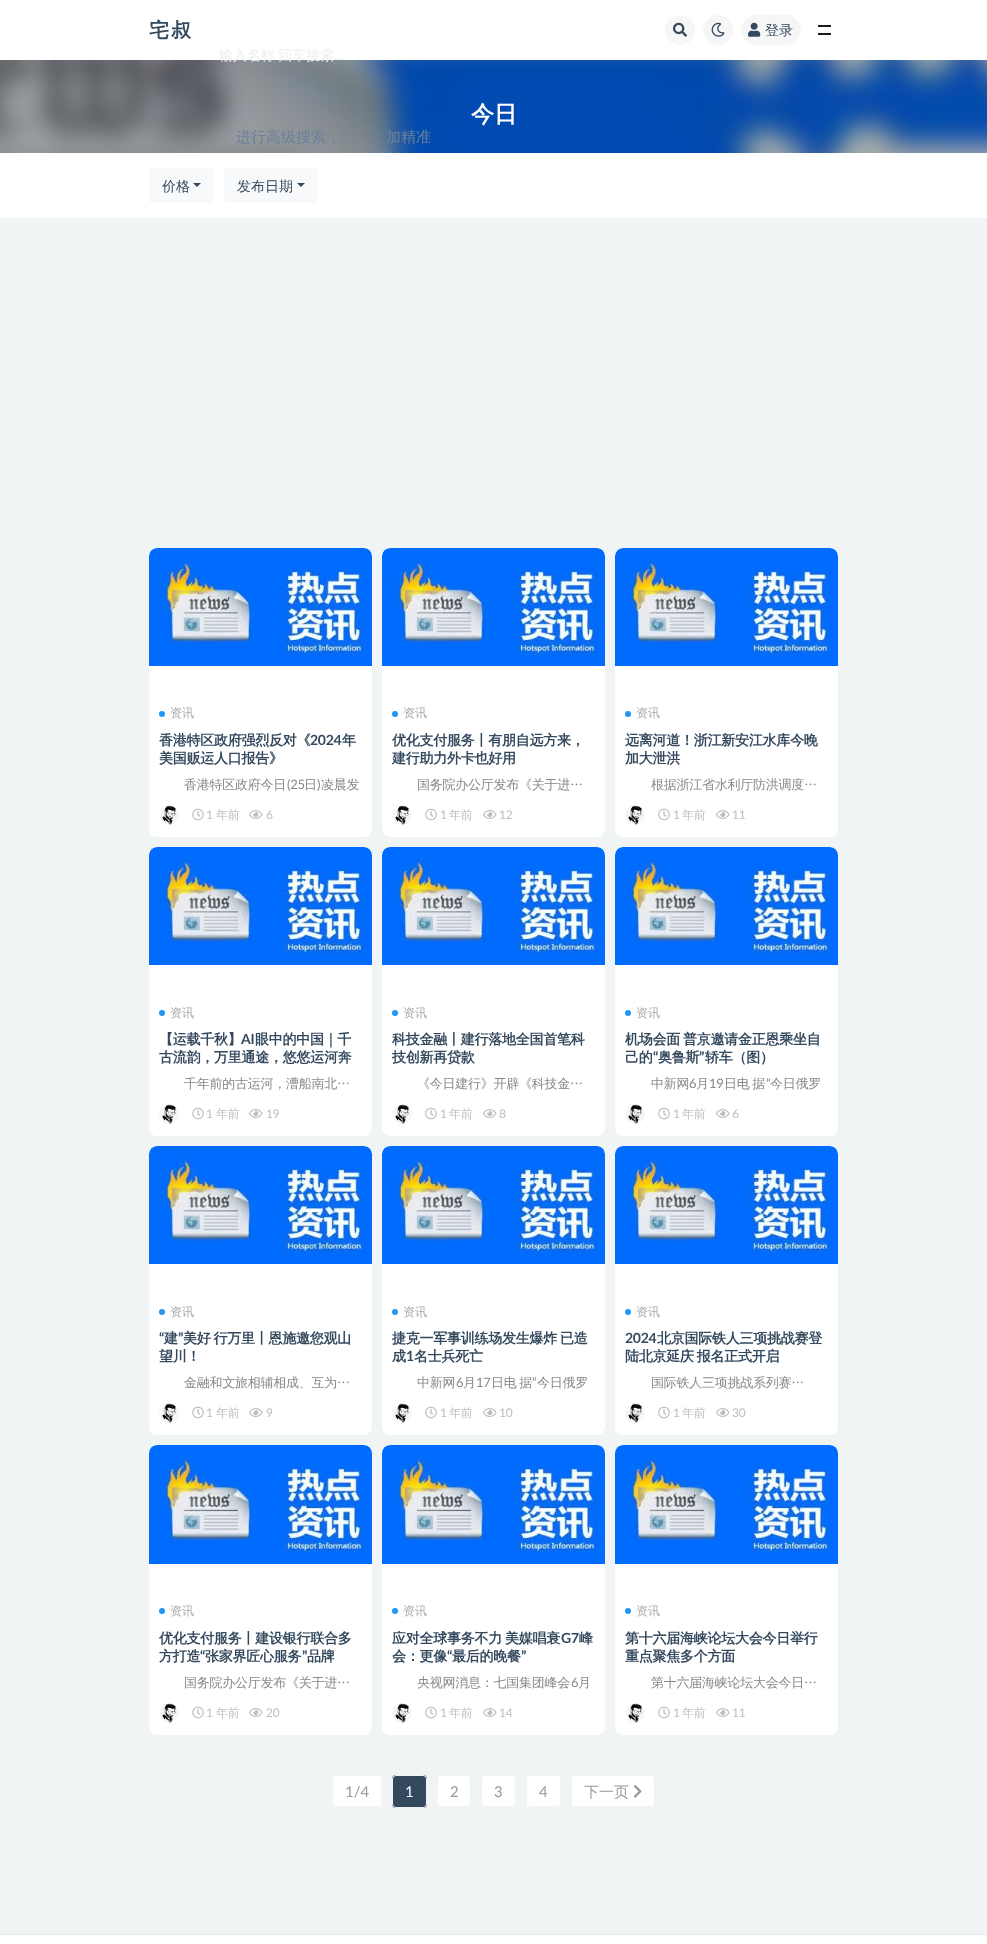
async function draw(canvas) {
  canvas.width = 987;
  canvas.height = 1944;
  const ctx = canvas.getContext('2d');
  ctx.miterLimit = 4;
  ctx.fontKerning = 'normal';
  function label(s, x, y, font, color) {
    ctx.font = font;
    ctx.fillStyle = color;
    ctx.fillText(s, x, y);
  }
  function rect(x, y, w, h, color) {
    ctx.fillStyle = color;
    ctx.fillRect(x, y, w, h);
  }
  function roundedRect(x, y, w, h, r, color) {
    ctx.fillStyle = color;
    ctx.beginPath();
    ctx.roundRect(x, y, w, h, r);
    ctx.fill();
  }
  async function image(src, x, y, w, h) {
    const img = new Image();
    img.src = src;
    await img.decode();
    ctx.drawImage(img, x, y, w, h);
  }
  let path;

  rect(0, 0, 987, 1944, '#f0f4f5');
  await image('assets/img4.png', 0, 60, 987, 93);
  ctx.fillStyle = '#00000012';
  ctx.filter = 'blur(15px)';
  ctx.beginPath();
  ctx.rect(0, 0, 987, 60);
  ctx.fill();
  ctx.filter = 'none';
  ctx.fillStyle = '#0000004d';
  ctx.filter = 'blur(10px)';
  ctx.beginPath();
  ctx.rect(-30, 44, 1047, 140);
  ctx.fill();
  ctx.filter = 'none';
  rect(0, 0, 987, 60, '#fff');
  ctx.letterSpacing = '2px';
  label('宅叔', 149, 37, 'bold 20px WenQuanYi Zen Hei', '#34495e');
  ctx.fillStyle = '#f6f6f6';
  ctx.beginPath();
  ctx.arc(680, 30, 15, 0, 2 * Math.PI);
  ctx.fill();
  await image('assets/img1.png', 673, 22, 14, 15);
  ctx.beginPath();
  ctx.arc(718, 30, 15, 0, 2 * Math.PI);
  ctx.fill();
  await image('assets/img2.png', 711, 22, 14, 15);
  roundedRect(741, 15, 60, 30, 15, '#f6f6f6');
  await image('assets/img3.png', 748, 22, 13, 15);
  ctx.letterSpacing = '0px';
  label('登录', 765, 35, '500 14px WenQuanYi Zen Hei', '#34495e');
  rect(818, 25, 13, 2, '#1a1a1a');
  rect(818, 33, 13, 2, '#1a1a1a');
  label('今日', 471, 122, 'bold 23px WenQuanYi Zen Hei', '#fff');
  rect(0, 153, 987, 65, '#fff');
  roundedRect(149, 168, 65, 35, 4, '#f8f9fa');
  label('价格', 162, 191, '500 14px WenQuanYi Zen Hei', '#34495e');
  path = new Path2D('M193 183H201L197 187Z');
  ctx.fill(path);
  roundedRect(224, 168, 94, 35, 4, '#f8f9fa');
  label('发布日期', 237, 191, '500 14px WenQuanYi Zen Hei', '#34495e');
  path = new Path2D('M297 183H305L301 187Z');
  ctx.fill(path);
  roundedRect(149, 548, 223, 289, 8, '#fff');
  await image('assets/img5.png', 149, 548, 223, 118);
  ctx.fillStyle = '#2196f3';
  ctx.beginPath();
  ctx.arc(162, 714, 3, 0, 2 * Math.PI);
  ctx.fill();
  label('资讯', 170, 717, '500 12px WenQuanYi Zen Hei', '#aaa');
  ctx.letterSpacing = '-0.25px';
  label('香港特区政府强烈反对《', 159, 745, 'bold 14px WenQuanYi Zen Hei', '#34495e');
  label('2024', 310, 745, 'bold 14px Lato', '#34495e');
  label('年', 342, 745, 'bold 14px WenQuanYi Zen Hei', '#34495e');
  label('美国贩运人口报告》', 159, 763, 'bold 14px WenQuanYi Zen Hei', '#34495e');
  label('香港特区政府今日', 184, 789, '500 13px WenQuanYi Zen Hei', '#888');
  label('(25', 287, 789, '13px Lato', '#888');
  label('日', 304, 789, '500 13px WenQuanYi Zen Hei', '#888');
  label(')', 317, 789, '13px Lato', '#888');
  label('凌晨发', 321, 789, '500 13px WenQuanYi Zen Hei', '#888');
  await image('assets/img6.png', 159, 805, 20, 20);
  await image('assets/img7.png', 192, 808, 12, 13);
  label('1', 206, 819, '12px Lato', '#bdbdbd');
  label('年前', 216, 819, '500 12px WenQuanYi Zen Hei', '#bdbdbd');
  await image('assets/img8.png', 249, 810, 14, 9);
  label('6', 266, 819, '12px Lato', '#bdbdbd');
  roundedRect(382, 548, 223, 289, 8, '#fff');
  await image('assets/img5.png', 382, 548, 223, 118);
  ctx.fillStyle = '#2196f3';
  ctx.beginPath();
  ctx.arc(395, 714, 3, 0, 2 * Math.PI);
  ctx.fill();
  ctx.letterSpacing = '0px';
  label('资讯', 403, 717, '500 12px WenQuanYi Zen Hei', '#aaa');
  ctx.letterSpacing = '-0.25px';
  label('优化支付服务丨有朋自远方来，', 392, 745, 'bold 14px WenQuanYi Zen Hei', '#34495e');
  label('建行助力外卡也好用', 392, 763, 'bold 14px WenQuanYi Zen Hei', '#34495e');
  label('国务院办公厅发布《关于进…', 417, 789, '500 13px WenQuanYi Zen Hei', '#888');
  await image('assets/img9.png', 392, 805, 20, 20);
  await image('assets/img7.png', 425, 808, 12, 13);
  label('1', 440, 819, '12px Lato', '#bdbdbd');
  label('年前', 449, 819, '500 12px WenQuanYi Zen Hei', '#bdbdbd');
  await image('assets/img8.png', 483, 810, 14, 9);
  label('12', 499, 819, '12px Lato', '#bdbdbd');
  roundedRect(615, 548, 223, 289, 8, '#fff');
  await image('assets/img5.png', 615, 548, 223, 118);
  ctx.fillStyle = '#2196f3';
  ctx.beginPath();
  ctx.arc(628, 714, 3, 0, 2 * Math.PI);
  ctx.fill();
  ctx.letterSpacing = '0px';
  label('资讯', 636, 717, '500 12px WenQuanYi Zen Hei', '#aaa');
  ctx.letterSpacing = '-0.25px';
  label('远离河道！浙江新安江水库今晚', 625, 745, 'bold 14px WenQuanYi Zen Hei', '#34495e');
  label('加大泄洪', 625, 763, 'bold 14px WenQuanYi Zen Hei', '#34495e');
  label('根据浙江省水利厅防洪调度…', 651, 789, '500 13px WenQuanYi Zen Hei', '#888');
  await image('assets/img10.png', 625, 805, 20, 20);
  await image('assets/img7.png', 658, 808, 12, 13);
  label('1', 673, 819, '12px Lato', '#bdbdbd');
  label('年前', 682, 819, '500 12px WenQuanYi Zen Hei', '#bdbdbd');
  await image('assets/img8.png', 716, 810, 14, 9);
  label('11', 732, 819, '12px Lato', '#bdbdbd');
  roundedRect(149, 847, 223, 289, 8, '#fff');
  await image('assets/img11.png', 149, 847, 223, 118);
  ctx.fillStyle = '#2196f3';
  ctx.beginPath();
  ctx.arc(162, 1013, 3, 0, 2 * Math.PI);
  ctx.fill();
  ctx.letterSpacing = '0px';
  label('资讯', 170, 1017, '500 12px WenQuanYi Zen Hei', '#aaa');
  ctx.letterSpacing = '-0.25px';
  label('【运载千秋】', 159, 1044, 'bold 14px WenQuanYi Zen Hei', '#34495e');
  label('AI', 241, 1044, 'bold 14px Lato', '#34495e');
  label('眼中的中国｜千', 255, 1044, 'bold 14px WenQuanYi Zen Hei', '#34495e');
  label('古流韵，万里通途，悠悠运河奔', 159, 1062, 'bold 14px WenQuanYi Zen Hei', '#34495e');
  label('千年前的古运河，漕船南北…', 184, 1088, '500 13px WenQuanYi Zen Hei', '#888');
  await image('assets/img6.png', 159, 1104, 20, 20);
  await image('assets/img7.png', 192, 1107, 12, 13);
  label('1', 206, 1118, '12px Lato', '#bdbdbd');
  label('年前', 216, 1118, '500 12px WenQuanYi Zen Hei', '#bdbdbd');
  await image('assets/img8.png', 249, 1109, 14, 9);
  label('19', 266, 1118, '12px Lato', '#bdbdbd');
  roundedRect(382, 847, 223, 289, 8, '#fff');
  await image('assets/img11.png', 382, 847, 223, 118);
  ctx.fillStyle = '#2196f3';
  ctx.beginPath();
  ctx.arc(395, 1013, 3, 0, 2 * Math.PI);
  ctx.fill();
  ctx.letterSpacing = '0px';
  label('资讯', 403, 1017, '500 12px WenQuanYi Zen Hei', '#aaa');
  ctx.letterSpacing = '-0.25px';
  label('科技金融丨建行落地全国首笔科', 392, 1044, 'bold 14px WenQuanYi Zen Hei', '#34495e');
  label('技创新再贷款', 392, 1062, 'bold 14px WenQuanYi Zen Hei', '#34495e');
  label('《今日建行》开辟《科技金…', 417, 1088, '500 13px WenQuanYi Zen Hei', '#888');
  await image('assets/img9.png', 392, 1104, 20, 20);
  await image('assets/img7.png', 425, 1107, 12, 13);
  label('1', 440, 1118, '12px Lato', '#bdbdbd');
  label('年前', 449, 1118, '500 12px WenQuanYi Zen Hei', '#bdbdbd');
  await image('assets/img8.png', 483, 1109, 14, 9);
  label('8', 499, 1118, '12px Lato', '#bdbdbd');
  roundedRect(615, 847, 223, 289, 8, '#fff');
  await image('assets/img11.png', 615, 847, 223, 118);
  ctx.fillStyle = '#2196f3';
  ctx.beginPath();
  ctx.arc(628, 1013, 3, 0, 2 * Math.PI);
  ctx.fill();
  ctx.letterSpacing = '0px';
  label('资讯', 636, 1017, '500 12px WenQuanYi Zen Hei', '#aaa');
  ctx.letterSpacing = '-0.25px';
  ctx.wordSpacing = '-1px';
  label('机场会面 普京邀请金正恩乘坐自', 625, 1044, 'bold 14px WenQuanYi Zen Hei', '#34495e');
  ctx.wordSpacing = '0px';
  label('己的', 625, 1062, 'bold 14px WenQuanYi Zen Hei', '#34495e');
  label('“', 653, 1062, 'bold 14px Lato', '#34495e');
  label('奥鲁斯', 658, 1062, 'bold 14px WenQuanYi Zen Hei', '#34495e');
  label('”', 699, 1062, 'bold 14px Lato', '#34495e');
  label('轿车（图）', 705, 1062, 'bold 14px WenQuanYi Zen Hei', '#34495e');
  label('中新网', 651, 1088, '500 13px WenQuanYi Zen Hei', '#888');
  label('6', 689, 1088, '13px Lato', '#888');
  label('月', 696, 1088, '500 13px WenQuanYi Zen Hei', '#888');
  label('19', 709, 1088, '13px Lato', '#888');
  ctx.wordSpacing = '-1px';
  label('日电 据', 724, 1088, '500 13px WenQuanYi Zen Hei', '#888');
  ctx.wordSpacing = '0px';
  label('“', 766, 1088, '13px Lato', '#888');
  label('今日俄罗', 770, 1088, '500 13px WenQuanYi Zen Hei', '#888');
  await image('assets/img10.png', 625, 1104, 20, 20);
  await image('assets/img7.png', 658, 1107, 12, 13);
  label('1', 673, 1118, '12px Lato', '#bdbdbd');
  label('年前', 682, 1118, '500 12px WenQuanYi Zen Hei', '#bdbdbd');
  await image('assets/img8.png', 716, 1109, 14, 9);
  label('6', 732, 1118, '12px Lato', '#bdbdbd');
  roundedRect(149, 1146, 223, 289, 8, '#fff');
  await image('assets/img11.png', 149, 1146, 223, 118);
  ctx.fillStyle = '#2196f3';
  ctx.beginPath();
  ctx.arc(162, 1312, 3, 0, 2 * Math.PI);
  ctx.fill();
  ctx.letterSpacing = '0px';
  label('资讯', 170, 1316, '500 12px WenQuanYi Zen Hei', '#aaa');
  ctx.letterSpacing = '-0.25px';
  label('“', 159, 1343, 'bold 14px Lato', '#34495e');
  label('建', 164, 1343, 'bold 14px WenQuanYi Zen Hei', '#34495e');
  label('”', 178, 1343, 'bold 14px Lato', '#34495e');
  ctx.wordSpacing = '-1px';
  label('美好 行万里丨恩施邀您观山', 183, 1343, 'bold 14px WenQuanYi Zen Hei', '#34495e');
  ctx.wordSpacing = '0px';
  label('望川！', 159, 1361, 'bold 14px WenQuanYi Zen Hei', '#34495e');
  label('金融和文旅相辅相成、互为…', 184, 1387, '500 13px WenQuanYi Zen Hei', '#888');
  await image('assets/img6.png', 159, 1403, 20, 20);
  await image('assets/img7.png', 192, 1406, 12, 13);
  label('1', 206, 1417, '12px Lato', '#bdbdbd');
  label('年前', 216, 1417, '500 12px WenQuanYi Zen Hei', '#bdbdbd');
  await image('assets/img8.png', 249, 1408, 14, 9);
  label('9', 266, 1417, '12px Lato', '#bdbdbd');
  roundedRect(382, 1146, 223, 289, 8, '#fff');
  await image('assets/img11.png', 382, 1146, 223, 118);
  ctx.fillStyle = '#2196f3';
  ctx.beginPath();
  ctx.arc(395, 1312, 3, 0, 2 * Math.PI);
  ctx.fill();
  ctx.letterSpacing = '0px';
  label('资讯', 403, 1316, '500 12px WenQuanYi Zen Hei', '#aaa');
  ctx.letterSpacing = '-0.25px';
  ctx.wordSpacing = '-1px';
  label('捷克一军事训练场发生爆炸 已造', 392, 1343, 'bold 14px WenQuanYi Zen Hei', '#34495e');
  ctx.wordSpacing = '0px';
  label('成', 392, 1361, 'bold 14px WenQuanYi Zen Hei', '#34495e');
  label('1', 406, 1361, 'bold 14px Lato', '#34495e');
  label('名士兵死亡', 414, 1361, 'bold 14px WenQuanYi Zen Hei', '#34495e');
  label('中新网', 417, 1387, '500 13px WenQuanYi Zen Hei', '#888');
  label('6', 456, 1387, '13px Lato', '#888');
  label('月', 463, 1387, '500 13px WenQuanYi Zen Hei', '#888');
  label('17', 476, 1387, '13px Lato', '#888');
  ctx.wordSpacing = '-1px';
  label('日电 据', 491, 1387, '500 13px WenQuanYi Zen Hei', '#888');
  ctx.wordSpacing = '0px';
  label('“', 532, 1387, '13px Lato', '#888');
  label('今日俄罗', 537, 1387, '500 13px WenQuanYi Zen Hei', '#888');
  await image('assets/img9.png', 392, 1403, 20, 20);
  await image('assets/img7.png', 425, 1406, 12, 13);
  label('1', 440, 1417, '12px Lato', '#bdbdbd');
  label('年前', 449, 1417, '500 12px WenQuanYi Zen Hei', '#bdbdbd');
  await image('assets/img8.png', 483, 1408, 14, 9);
  label('10', 499, 1417, '12px Lato', '#bdbdbd');
  roundedRect(615, 1146, 223, 289, 8, '#fff');
  await image('assets/img11.png', 615, 1146, 223, 118);
  ctx.fillStyle = '#2196f3';
  ctx.beginPath();
  ctx.arc(628, 1312, 3, 0, 2 * Math.PI);
  ctx.fill();
  ctx.letterSpacing = '0px';
  label('资讯', 636, 1316, '500 12px WenQuanYi Zen Hei', '#aaa');
  ctx.letterSpacing = '-0.25px';
  label('2024', 625, 1343, 'bold 14px Lato', '#34495e');
  label('北京国际铁人三项挑战赛登', 657, 1343, 'bold 14px WenQuanYi Zen Hei', '#34495e');
  ctx.wordSpacing = '-1px';
  label('陆北京延庆 报名正式开启', 625, 1361, 'bold 14px WenQuanYi Zen Hei', '#34495e');
  ctx.wordSpacing = '0px';
  label('国际铁人三项挑战系列赛…', 651, 1387, '500 13px WenQuanYi Zen Hei', '#888');
  await image('assets/img10.png', 625, 1403, 20, 20);
  await image('assets/img7.png', 658, 1406, 12, 13);
  label('1', 673, 1417, '12px Lato', '#bdbdbd');
  label('年前', 682, 1417, '500 12px WenQuanYi Zen Hei', '#bdbdbd');
  await image('assets/img8.png', 716, 1408, 14, 9);
  label('30', 732, 1417, '12px Lato', '#bdbdbd');
  roundedRect(149, 1445, 223, 290, 8, '#fff');
  await image('assets/img12.png', 149, 1445, 223, 119);
  ctx.fillStyle = '#2196f3';
  ctx.beginPath();
  ctx.arc(162, 1611, 3, 0, 2 * Math.PI);
  ctx.fill();
  ctx.letterSpacing = '0px';
  label('资讯', 170, 1615, '500 12px WenQuanYi Zen Hei', '#aaa');
  ctx.letterSpacing = '-0.25px';
  label('优化支付服务丨建设银行联合多', 159, 1643, 'bold 14px WenQuanYi Zen Hei', '#34495e');
  label('方打造', 159, 1661, 'bold 14px WenQuanYi Zen Hei', '#34495e');
  label('“', 200, 1661, 'bold 14px Lato', '#34495e');
  label('张家界匠心服务', 205, 1661, 'bold 14px WenQuanYi Zen Hei', '#34495e');
  label('”', 302, 1661, 'bold 14px Lato', '#34495e');
  label('品牌', 307, 1661, 'bold 14px WenQuanYi Zen Hei', '#34495e');
  label('国务院办公厅发布《关于进…', 184, 1687, '500 13px WenQuanYi Zen Hei', '#888');
  await image('assets/img6.png', 159, 1703, 20, 20);
  await image('assets/img7.png', 192, 1706, 12, 13);
  label('1', 206, 1717, '12px Lato', '#bdbdbd');
  label('年前', 216, 1717, '500 12px WenQuanYi Zen Hei', '#bdbdbd');
  await image('assets/img8.png', 249, 1708, 14, 9);
  label('20', 266, 1717, '12px Lato', '#bdbdbd');
  roundedRect(382, 1445, 223, 290, 8, '#fff');
  await image('assets/img12.png', 382, 1445, 223, 119);
  ctx.fillStyle = '#2196f3';
  ctx.beginPath();
  ctx.arc(395, 1611, 3, 0, 2 * Math.PI);
  ctx.fill();
  ctx.letterSpacing = '0px';
  label('资讯', 403, 1615, '500 12px WenQuanYi Zen Hei', '#aaa');
  ctx.letterSpacing = '-0.25px';
  ctx.wordSpacing = '-1px';
  label('应对全球事务不力 美媒唱衰', 392, 1643, 'bold 14px WenQuanYi Zen Hei', '#34495e');
  ctx.wordSpacing = '0px';
  label('G7', 561, 1643, 'bold 14px Lato', '#34495e');
  label('峰', 579, 1643, 'bold 14px WenQuanYi Zen Hei', '#34495e');
  label('会：更像', 392, 1661, 'bold 14px WenQuanYi Zen Hei', '#34495e');
  label('“', 447, 1661, 'bold 14px Lato', '#34495e');
  label('最后的晚餐', 452, 1661, 'bold 14px WenQuanYi Zen Hei', '#34495e');
  label('”', 521, 1661, 'bold 14px Lato', '#34495e');
  label('央视网消息：七国集团峰会', 417, 1687, '500 13px WenQuanYi Zen Hei', '#888');
  label('6', 571, 1687, '13px Lato', '#888');
  label('月', 578, 1687, '500 13px WenQuanYi Zen Hei', '#888');
  await image('assets/img9.png', 392, 1703, 20, 20);
  await image('assets/img7.png', 425, 1706, 12, 13);
  label('1', 440, 1717, '12px Lato', '#bdbdbd');
  label('年前', 449, 1717, '500 12px WenQuanYi Zen Hei', '#bdbdbd');
  await image('assets/img8.png', 483, 1708, 14, 9);
  label('14', 499, 1717, '12px Lato', '#bdbdbd');
  roundedRect(615, 1445, 223, 290, 8, '#fff');
  await image('assets/img12.png', 615, 1445, 223, 119);
  ctx.fillStyle = '#2196f3';
  ctx.beginPath();
  ctx.arc(628, 1611, 3, 0, 2 * Math.PI);
  ctx.fill();
  ctx.letterSpacing = '0px';
  label('资讯', 636, 1615, '500 12px WenQuanYi Zen Hei', '#aaa');
  ctx.letterSpacing = '-0.25px';
  label('第十六届海峡论坛大会今日举行', 625, 1643, 'bold 14px WenQuanYi Zen Hei', '#34495e');
  label('重点聚焦多个方面', 625, 1661, 'bold 14px WenQuanYi Zen Hei', '#34495e');
  label('第十六届海峡论坛大会今日…', 651, 1687, '500 13px WenQuanYi Zen Hei', '#888');
  await image('assets/img10.png', 625, 1703, 20, 20);
  await image('assets/img7.png', 658, 1706, 12, 13);
  label('1', 673, 1717, '12px Lato', '#bdbdbd');
  label('年前', 682, 1717, '500 12px WenQuanYi Zen Hei', '#bdbdbd');
  await image('assets/img8.png', 716, 1708, 14, 9);
  label('11', 732, 1717, '12px Lato', '#bdbdbd');
  roundedRect(332, 1775, 50, 33, 4, '#fff');
  ctx.fillStyle = '#f2f2f2';
  path = new Path2D('M333 1803C333 1809 339 1807 343 1807H371C375 1807 381 1809 381 1803C381 1805 380 1806 378 1806H336C334 1806 333 1805 333 1803Z');
  ctx.fill(path);
  ctx.beginPath();
  ctx.roundRect(332.5, 1775.5, 49, 32, 3.5);
  ctx.strokeStyle = '#f3f3f3';
  ctx.stroke();
  ctx.letterSpacing = '0px';
  label('1/4', 345, 1797, '15px Lato', '#999');
  roundedRect(392, 1775, 35, 33, 4, '#34495e');
  ctx.fillStyle = '#314559';
  path = new Path2D('M393 1803C393 1808 396.5 1807 400.5 1807H418.5C422.5 1807 426 1808 426 1803C426 1805 425 1806 423 1806H396C394 1806 393 1805 393 1803Z');
  ctx.fill(path);
  ctx.beginPath();
  ctx.roundRect(392.5, 1775.5, 34, 32, 3.5);
  ctx.stroke();
  label('1', 405, 1797, '15px Lato', '#fff');
  roundedRect(437, 1775, 34, 33, 4, '#fff');
  ctx.fillStyle = '#f2f2f2';
  path = new Path2D('M438 1803C438 1808 441.5 1807 445.5 1807H462.5C466.5 1807 470 1808 470 1803C470 1805 469 1806 467 1806H441C439 1806 438 1805 438 1803Z');
  ctx.fill(path);
  ctx.beginPath();
  ctx.roundRect(437.5, 1775.5, 33, 32, 3.5);
  ctx.stroke();
  label('2', 450, 1797, '15px Lato', '#999');
  roundedRect(481, 1775, 35, 33, 4, '#fff');
  ctx.fillStyle = '#f2f2f2';
  path = new Path2D('M482 1803C482 1808 485.5 1807 489.5 1807H507.5C511.5 1807 515 1808 515 1803C515 1805 514 1806 512 1806H485C483 1806 482 1805 482 1803Z');
  ctx.fill(path);
  ctx.beginPath();
  ctx.roundRect(481.5, 1775.5, 34, 32, 3.5);
  ctx.stroke();
  label('3', 494, 1797, '15px Lato', '#999');
  roundedRect(526, 1775, 35, 33, 4, '#fff');
  ctx.fillStyle = '#f2f2f2';
  path = new Path2D('M527 1803C527 1808 530.5 1807 534.5 1807H552.5C556.5 1807 560 1808 560 1803C560 1805 559 1806 557 1806H530C528 1806 527 1805 527 1803Z');
  ctx.fill(path);
  ctx.beginPath();
  ctx.roundRect(526.5, 1775.5, 34, 32, 3.5);
  ctx.stroke();
  label('4', 539, 1797, '15px Lato', '#999');
  roundedRect(571, 1775, 84, 33, 4, '#fff');
  ctx.fillStyle = '#f2f2f2';
  path = new Path2D('M572 1803C572 1810 584 1807 588 1807H638C642 1807 654 1810 654 1803C654 1805 653 1806 651 1806H575C573 1806 572 1805 572 1803Z');
  ctx.fill(path);
  ctx.beginPath();
  ctx.roundRect(571.5, 1775.5, 83, 32, 3.5);
  ctx.stroke();
  label('下一页', 584, 1797, '500 15px WenQuanYi Zen Hei', '#999');
  await image('assets/img13.png', 633, 1785, 9, 13);
  ctx.save();
  ctx.beginPath();
  ctx.rect(219, 46, 607, 19);
  ctx.clip();
  ctx.wordSpacing = '-1px';
  label('输入名称 回车搜索', 219, 60, '500 14px WenQuanYi Zen Hei', '#eeeeef');
  ctx.restore();
  label('...', 334, 60, '14px Lato', '#e8eaeb');
  label('进行高级搜索，', 236, 142, '500 15px WenQuanYi Zen Hei', '#6c819a');
  label('加精准', 386, 142, '500 15px WenQuanYi Zen Hei', '#6c819a');
  rect(0, 1934, 987, 10, '#fff');
  roundedRect(0, 1934, 987, 1, 0.5, '#e6e6e6');
}

draw(document.querySelector('canvas'));
